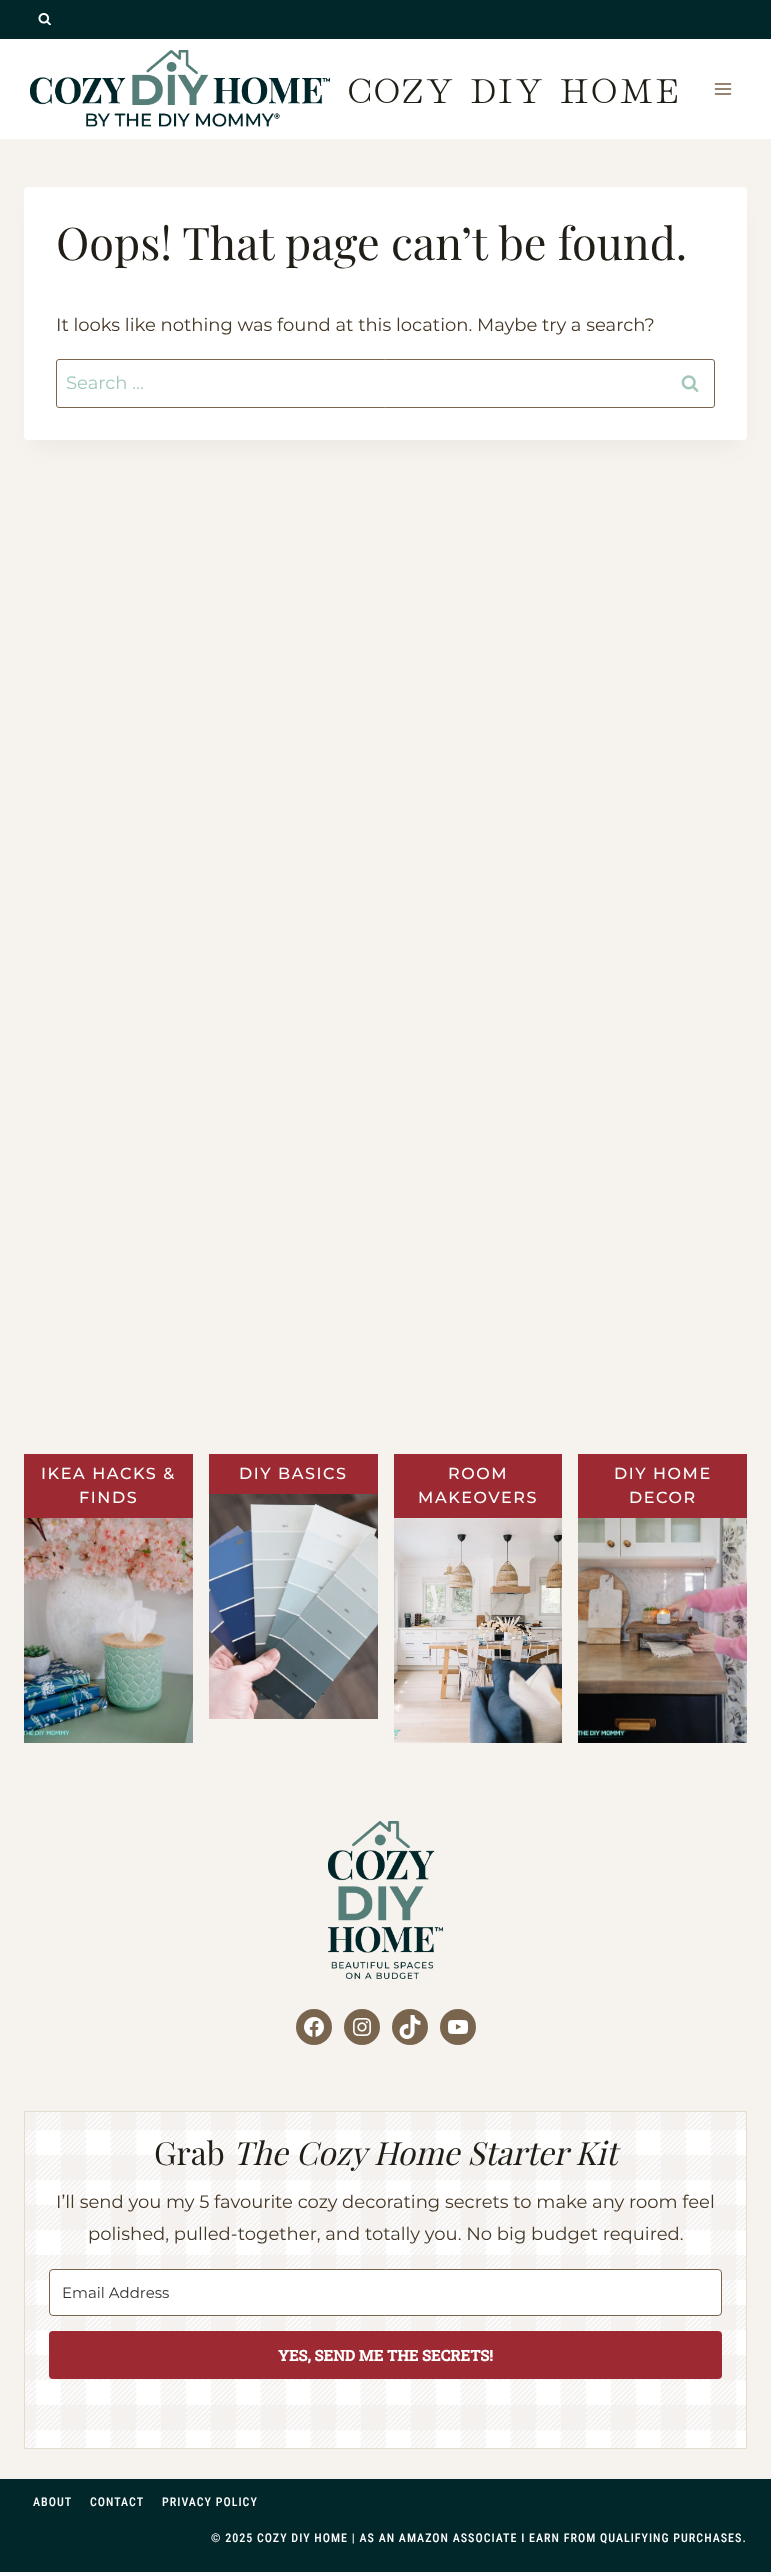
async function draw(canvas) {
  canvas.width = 771;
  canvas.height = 2572;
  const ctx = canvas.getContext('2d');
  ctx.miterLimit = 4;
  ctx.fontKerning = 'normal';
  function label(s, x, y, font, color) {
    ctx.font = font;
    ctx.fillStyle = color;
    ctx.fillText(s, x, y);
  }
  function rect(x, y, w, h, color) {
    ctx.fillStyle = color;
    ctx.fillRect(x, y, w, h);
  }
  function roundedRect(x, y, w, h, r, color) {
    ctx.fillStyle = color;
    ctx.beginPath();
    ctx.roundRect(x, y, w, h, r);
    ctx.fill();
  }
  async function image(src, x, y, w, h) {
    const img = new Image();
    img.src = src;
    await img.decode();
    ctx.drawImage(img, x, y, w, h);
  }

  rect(0, 0, 771, 2572, '#f6f3ee');
  rect(0, 39, 771, 100, '#fff');
  rect(0, 0, 771, 39, '#01272a');
  await image('assets/img1.png', 38, 13, 13, 12);
  await image('assets/img2.png', 30, 50, 300, 77);
  ctx.letterSpacing = '3.5px';
  label('COZY DIY HOME', 348, 103, '35px Hina Mincho', '#211e17');
  await image('assets/img3.png', 714, 83, 18, 12);
  ctx.fillStyle = '#0000000d';
  ctx.filter = 'blur(12.5px)';
  ctx.beginPath();
  ctx.rect(34, 212, 703, 233);
  ctx.fill();
  ctx.filter = 'none';
  roundedRect(24, 187, 723, 253, 4, '#fff');
  ctx.letterSpacing = '0px';
  label('Oops! That page can’t be found.', 56, 260, '45px Playfair Display', '#211e17');
  label('It looks like nothing was found at this location. Maybe try a search?', 56, 331, '18px Montserrat', '#443725');
  ctx.beginPath();
  ctx.roundRect(56.5, 359.5, 658, 48, 2.5);
  ctx.strokeStyle = '#79644d';
  ctx.stroke();
  label('Search …', 66, 389, '18px Montserrat', '#a2c8b7');
  await image('assets/img4.png', 681, 375, 18, 17);
  rect(24, 1454, 169, 64, '#9d2933');
  ctx.letterSpacing = '1.6px';
  label('IKEA HACKS &', 41, 1479, '500 16px Montserrat', '#fff');
  label('FINDS', 79, 1503, '500 16px Montserrat', '#fff');
  await image('assets/img5.png', 24, 1518, 169, 225);
  rect(209, 1454, 169, 40, '#9d2933');
  label('DIY BASICS', 239, 1479, '500 16px Montserrat', '#fff');
  await image('assets/img6.png', 209, 1494, 169, 225);
  rect(394, 1454, 168, 64, '#9d2933');
  label('ROOM', 448, 1479, '500 16px Montserrat', '#fff');
  label('MAKEOVERS', 418, 1503, '500 16px Montserrat', '#fff');
  await image('assets/img7.png', 394, 1518, 168, 225);
  rect(578, 1454, 169, 64, '#9d2933');
  label('DIY HOME', 614, 1479, '500 16px Montserrat', '#fff');
  label('DECOR', 629, 1503, '500 16px Montserrat', '#fff');
  await image('assets/img8.png', 578, 1518, 169, 225);
  await image('assets/img9.png', 328, 1821, 115, 158);
  ctx.fillStyle = '#79644d';
  ctx.beginPath();
  ctx.arc(314, 2027, 18, 0, 2 * Math.PI);
  ctx.fill();
  await image('assets/img10.png', 304, 2017, 20, 20);
  ctx.beginPath();
  ctx.arc(362, 2027, 18, 0, 2 * Math.PI);
  ctx.fill();
  await image('assets/img11.png', 353, 2018, 18, 18);
  ctx.beginPath();
  ctx.arc(410, 2027, 18, 0, 2 * Math.PI);
  ctx.fill();
  await image('assets/img12.png', 399, 2015, 22, 24);
  ctx.beginPath();
  ctx.arc(458, 2027, 18, 0, 2 * Math.PI);
  ctx.fill();
  await image('assets/img13.png', 448, 2020, 20, 14);
  ctx.fillStyle = '#fff';
  ctx.beginPath();
  ctx.rect(24.5, 2111.5, 722, 337);
  ctx.fill();
  ctx.strokeStyle = '#e3dccf';
  ctx.stroke();
  await image('assets/img14.png', 25, 2112, 721, 336);
  ctx.letterSpacing = '0px';
  label('Grab', 154, 2165, '32px Playfair Display', '#211e17');
  label('The Cozy Home Starter Kit', 233, 2165, 'italic 32px Playfair Display', '#211e17');
  label('I’ll send you my 5 favourite cozy decorating secrets to make any room feel', 56, 2208, '18px Montserrat', '#443725');
  label('polished, pulled-together, and totally you. No big budget required.', 88, 2240, '18px Montserrat', '#443725');
  ctx.fillStyle = '#fff';
  ctx.beginPath();
  ctx.roundRect(49.5, 2269.5, 672, 46, 3.5);
  ctx.fill();
  ctx.strokeStyle = '#79644d';
  ctx.stroke();
  label('Email Address', 62, 2298, '15px Montserrat', '#333');
  roundedRect(49, 2331, 673, 48, 4, '#9d2933');
  label('YES, SEND ME THE SECRETS!', 278, 2361, 'bold 15px Roboto Slab', '#fff');
  rect(0, 2479, 771, 93, '#01272a');
  ctx.letterSpacing = '1px';
  label('ABOUT', 33, 2506, '500 12px Roboto Condensed', '#fff');
  label('CONTACT', 90, 2506, '500 12px Roboto Condensed', '#fff');
  label('PRIVACY POLICY', 162, 2506, '500 12px Roboto Condensed', '#fff');
  label('© 2025 COZY DIY HOME | AS AN AMAZON ASSOCIATE I EARN FROM QUALIFYING PURCHASES.', 211, 2542, '500 12px Roboto Condensed', '#fff');
}

draw(document.querySelector('canvas'));
